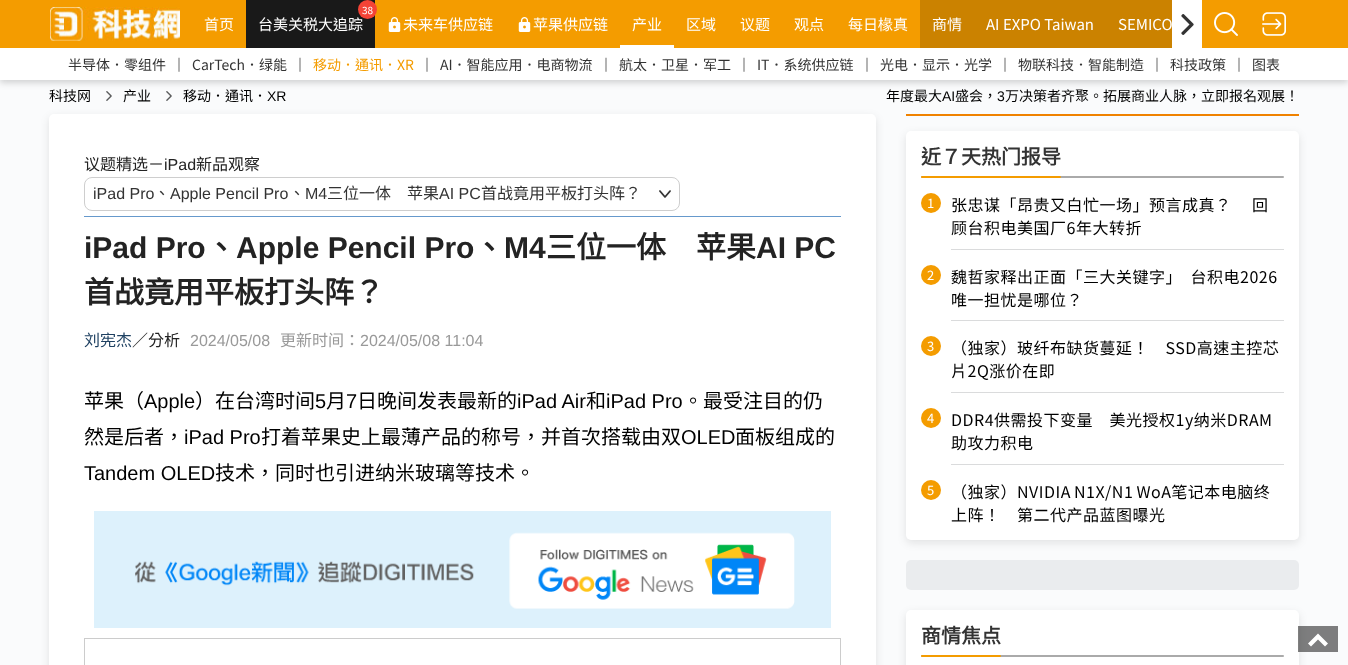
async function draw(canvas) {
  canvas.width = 1348;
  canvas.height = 665;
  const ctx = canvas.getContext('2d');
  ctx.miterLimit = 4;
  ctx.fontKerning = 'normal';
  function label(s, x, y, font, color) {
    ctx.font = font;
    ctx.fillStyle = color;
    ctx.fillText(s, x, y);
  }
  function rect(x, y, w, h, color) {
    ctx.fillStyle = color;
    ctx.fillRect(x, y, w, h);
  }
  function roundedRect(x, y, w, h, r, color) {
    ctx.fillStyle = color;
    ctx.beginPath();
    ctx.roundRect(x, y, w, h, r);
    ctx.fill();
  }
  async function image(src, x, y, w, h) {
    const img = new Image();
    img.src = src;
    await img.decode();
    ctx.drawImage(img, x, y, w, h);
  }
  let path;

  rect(0, 0, 1348, 665, '#fafbfc');
  await image('assets/img6.png', 106, 91, 6, 10);
  await image('assets/img6.png', 166, 91, 6, 10);
  ctx.fillStyle = '#00000029';
  ctx.filter = 'blur(3px)';
  ctx.beginPath();
  ctx.rect(0, 3, 1348, 80);
  ctx.fill();
  ctx.filter = 'none';
  rect(0, 0, 1348, 48, '#f49c00');
  await image('assets/img1.png', 50, 7, 130, 34);
  label('首页', 204, 30, '15px Noto Sans TC', '#fff');
  rect(246, 0, 129, 48, '#191919');
  label('台美关税大追踪', 258, 30, '15px Noto Sans CJK TC', '#fff');
  ctx.fillStyle = '#f44336';
  ctx.beginPath();
  ctx.arc(367.5, 9.5, 9.5, 0, 2 * Math.PI);
  ctx.fill();
  label('38', 362, 14, '10px Noto Sans TC', '#fff');
  await image('assets/img2.png', 388, 17, 13, 15);
  label('未来车供应链', 403, 30, '15px Noto Sans CJK TC', '#fff');
  await image('assets/img2.png', 518, 17, 13, 15);
  label('苹果供应链', 533, 30, '15px Noto Sans CJK TC', '#fff');
  rect(620, 45, 54, 3, '#fff');
  label('产业', 632, 30, '15px Noto Sans CJK TC', '#fff');
  label('区域', 686, 30, '15px Noto Sans CJK TC', '#fff');
  label('议题', 740, 30, '15px Noto Sans CJK TC', '#fff');
  label('观点', 794, 30, '15px Noto Sans CJK TC', '#fff');
  label('每日椽真', 848, 30, '15px Noto Sans TC', '#fff');
  rect(920, 0, 252, 48, '#cb8200');
  label('商情', 932, 30, '15px Noto Sans TC', '#fff');
  label('AI EXPO Taiwan', 986, 30, '15px Noto Sans TC', '#fff');
  label('SEMICO', 1118, 30, '15px Noto Sans TC', '#fff');
  rect(1172, 0, 30, 48, '#fff');
  await image('assets/img3.png', 1181, 14, 13, 21);
  await image('assets/img4.png', 1214, 12, 24, 24);
  await image('assets/img5.png', 1262, 12, 24, 24);
  rect(0, 48, 1348, 32, '#fff');
  label('半导体．零组件', 68, 70, '14px Noto Sans CJK TC', '#333');
  label('｜', 172, 70, '14px Noto Sans TC', '#000');
  label('CarTech．绿能', 192, 70, '14px Noto Sans CJK TC', '#333');
  label('｜', 293, 70, '14px Noto Sans TC', '#000');
  label('移动．通讯．XR', 313, 70, '14px Noto Sans CJK TC', '#f49c00');
  label('｜', 420, 70, '14px Noto Sans TC', '#000');
  label('AI．智能应用．电商物流', 440, 70, '14px Noto Sans CJK TC', '#333');
  label('｜', 599, 70, '14px Noto Sans TC', '#000');
  label('航太．卫星．军工', 619, 70, '14px Noto Sans CJK TC', '#333');
  label('｜', 737, 70, '14px Noto Sans TC', '#000');
  label('IT．系统供应链', 757, 70, '14px Noto Sans CJK TC', '#333');
  label('｜', 860, 70, '14px Noto Sans TC', '#000');
  label('光电．显示．光学', 880, 70, '14px Noto Sans CJK TC', '#333');
  label('｜', 998, 70, '14px Noto Sans TC', '#000');
  label('物联科技．智能制造', 1018, 70, '14px Noto Sans TC', '#333');
  label('｜', 1150, 70, '14px Noto Sans TC', '#000');
  label('科技政策', 1170, 70, '14px Noto Sans TC', '#333');
  label('｜', 1232, 70, '14px Noto Sans TC', '#000');
  label('图表', 1252, 70, '14px Noto Sans CJK TC', '#333');
  label('科技网', 49, 101, '14px Noto Sans CJK TC', '#000');
  label('产业', 123, 101, '14px Noto Sans CJK TC', '#000');
  label('移动．通讯．', 183, 101, '14px Noto Sans CJK TC', '#000');
  label('XR', 267, 101, '14px Liberation Sans', '#000');
  label('年度最大', 886, 101, '14px Noto Sans CJK TC', '#000');
  label('AI', 942, 101, '14px Liberation Sans', '#000');
  label('盛会，', 955, 101, '14px Noto Sans CJK TC', '#000');
  label('3', 997, 101, '14px Liberation Sans', '#000');
  label('万决策者齐聚。拓展商业人脉，立即报名观展！', 1005, 101, '14px Noto Sans CJK TC', '#000');
  ctx.fillStyle = '#0a0b0c1a';
  ctx.filter = 'blur(4px)';
  ctx.beginPath();
  ctx.roundRect(49, 117, 827, 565, 5);
  ctx.fill();
  ctx.filter = 'none';
  roundedRect(49, 114, 827, 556, 5, '#fff');
  rect(84, 216, 757, 1, '#69c');
  label('议题精选－', 84, 170, '16px Noto Sans CJK TC', '#232323');
  label('iPad', 164, 170, '16px Liberation Sans', '#232323');
  label('新品观察', 196, 170, '16px Noto Sans CJK TC', '#232323');
  await image('assets/img7.png', 659, 190, 12, 8);
  ctx.beginPath();
  ctx.roundRect(84.5, 177.5, 595, 33, 7.5);
  ctx.strokeStyle = '#cecece';
  ctx.stroke();
  label('iPad Pro', 93, 199, '16px Liberation Sans', '#333');
  label('、', 154, 199, '16px Noto Sans CJK TC', '#333');
  label('Apple Pencil Pro', 170, 199, '16px Liberation Sans', '#333');
  label('、', 289, 199, '16px Noto Sans CJK TC', '#333');
  label('M4', 305, 199, '16px Liberation Sans', '#333');
  label('三位一体　苹果', 327, 199, '16px Noto Sans CJK TC', '#333');
  label('AI PC', 439, 199, '16px Liberation Sans', '#333');
  label('首战竟用平板打头阵？', 481, 199, '16px Noto Sans CJK TC', '#333');
  label('iPad Pro', 84, 258, 'bold 30px Liberation Sans', '#232323');
  label('、', 206, 258, 'bold 30px Noto Sans CJK TC', '#232323');
  label('Apple Pencil Pro', 236, 258, 'bold 30px Liberation Sans', '#232323');
  label('、', 474, 258, 'bold 30px Noto Sans CJK TC', '#232323');
  label('M4', 504, 258, 'bold 30px Liberation Sans', '#232323');
  label('三位一体　苹果', 546, 258, 'bold 30px Noto Sans CJK TC', '#232323');
  label('AI PC', 756, 258, 'bold 30px Liberation Sans', '#232323');
  label('首战竟用平板打头阵？', 84, 303, 'bold 30px Noto Sans CJK TC', '#232323');
  label('刘宪杰', 84, 346, '16px Noto Sans CJK TC', '#1e4061');
  label('／分析', 132, 346, '16px Noto Sans CJK TC', '#232323');
  label('2024/05/08', 190, 346, '16px Liberation Sans', '#999');
  label('更新时间：', 280, 346, '16px Noto Sans CJK TC', '#999');
  label('2024/05/08 11:04', 360, 346, '16px Liberation Sans', '#999');
  label('苹果（', 84, 408, '20px Noto Sans CJK TC', '#000');
  label('Apple', 144, 408, '20px Liberation Sans', '#000');
  label('）在台湾时间', 195, 408, '20px Noto Sans CJK TC', '#000');
  label('5', 315, 408, '20px Liberation Sans', '#000');
  label('月', 326, 408, '20px Noto Sans CJK TC', '#000');
  label('7', 346, 408, '20px Liberation Sans', '#000');
  label('日晚间发表最新的', 357, 408, '20px Noto Sans CJK TC', '#000');
  label('iPad Air', 517, 408, '20px Liberation Sans', '#000');
  label('和', 586, 408, '20px Noto Sans CJK TC', '#000');
  label('iPad Pro', 606, 408, '20px Liberation Sans', '#000');
  label('。最受注目的仍', 683, 408, '20px Noto Sans CJK TC', '#000');
  label('然是后者，', 84, 444, '20px Noto Sans CJK TC', '#000');
  label('iPad Pro', 184, 444, '20px Liberation Sans', '#000');
  label('打着苹果史上最薄产品的称号，并首次搭载由双', 261, 444, '20px Noto Sans CJK TC', '#000');
  label('OLED', 681, 444, '20px Liberation Sans', '#000');
  label('面板组成的', 735, 444, '20px Noto Sans CJK TC', '#000');
  label('Tandem OLED', 84, 480, '20px Liberation Sans', '#000');
  label('技术，同时也引进纳米玻璃等技术。', 215, 480, '20px Noto Sans CJK TC', '#000');
  await image('assets/img8.png', 94, 511, 737, 117);
  ctx.strokeStyle = '#ccc';
  ctx.strokeRect(84.5, 638.5, 756, 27);
  rect(906, 114, 393, 2, '#f08200');
  ctx.fillStyle = '#0a0b0c1a';
  ctx.filter = 'blur(4px)';
  ctx.beginPath();
  ctx.roundRect(906, 134, 393, 409, 5);
  ctx.fill();
  ctx.filter = 'none';
  roundedRect(906, 131, 393, 409, 5, '#fff');
  label('近７天热门报导', 921, 164, 'bold 20px Noto Sans CJK TC', '#333');
  roundedRect(921, 176, 363, 2, 1, '#aaa');
  roundedRect(921, 176, 140, 2, 1, '#f49c00');
  ctx.beginPath();
  ctx.arc(931, 203, 10, 0, 2 * Math.PI);
  ctx.fill();
  label('1', 927, 208, '13px Noto Sans TC', '#fff');
  rect(951, 249, 333, 1, '#dadbdc');
  ctx.letterSpacing = '0.5px';
  label('张忠谋「昂贵又白忙一场」预言成真？　 回', 951, 211, '16px Noto Sans CJK TC', '#000');
  label('顾台积电美国厂6年大转折', 951, 234, '16px Noto Sans CJK TC', '#000');
  ctx.fillStyle = '#f49c00';
  ctx.beginPath();
  ctx.arc(931, 275, 10, 0, 2 * Math.PI);
  ctx.fill();
  ctx.letterSpacing = '0px';
  label('2', 927, 280, '13px Noto Sans TC', '#fff');
  rect(951, 320, 333, 1, '#dadbdc');
  ctx.letterSpacing = '0.5px';
  label('魏哲家释出正面「三大关键字」　台积电2026', 951, 283, '16px Noto Sans CJK TC', '#000');
  label('唯一担忧是哪位？', 951, 306, '16px Noto Sans CJK TC', '#000');
  ctx.fillStyle = '#f49c00';
  ctx.beginPath();
  ctx.arc(931, 346, 10, 0, 2 * Math.PI);
  ctx.fill();
  ctx.letterSpacing = '0px';
  label('3', 927, 351, '13px Noto Sans TC', '#fff');
  rect(951, 392, 333, 1, '#dadbdc');
  ctx.letterSpacing = '0.5px';
  label('（独家）玻纤布缺货蔓延！　SSD高速主控芯', 951, 354, '16px Noto Sans CJK TC', '#000');
  label('片2Q涨价在即', 951, 377, '16px Noto Sans CJK TC', '#000');
  ctx.fillStyle = '#f49c00';
  ctx.beginPath();
  ctx.arc(931, 418, 10, 0, 2 * Math.PI);
  ctx.fill();
  ctx.letterSpacing = '0px';
  label('4', 927, 423, '13px Noto Sans TC', '#fff');
  rect(951, 464, 333, 1, '#dadbdc');
  ctx.letterSpacing = '0.5px';
  label('DDR4供需投下变量　美光授权1y纳米DRAM', 951, 426, '16px Noto Sans CJK TC', '#000');
  label('助攻力积电', 951, 449, '16px Noto Sans CJK TC', '#000');
  ctx.fillStyle = '#f49c00';
  ctx.beginPath();
  ctx.arc(931, 490, 10, 0, 2 * Math.PI);
  ctx.fill();
  ctx.letterSpacing = '0px';
  label('5', 927, 495, '13px Noto Sans TC', '#fff');
  ctx.letterSpacing = '0.5px';
  ctx.wordSpacing = '-1px';
  label('（独家）NVIDIA N1X/N1 WoA笔记本电脑终', 951, 498, '16px Noto Sans CJK TC', '#000');
  ctx.wordSpacing = '0px';
  label('上阵！　第二代产品蓝图曝光', 951, 521, '16px Noto Sans CJK TC', '#000');
  roundedRect(906, 560, 393, 30, 5, '#eaecee');
  ctx.fillStyle = '#0a0b0c1a';
  ctx.filter = 'blur(4px)';
  ctx.beginPath();
  ctx.roundRect(906, 613, 393, 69, 5);
  ctx.fill();
  ctx.filter = 'none';
  roundedRect(906, 610, 393, 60, 5, '#fff');
  ctx.letterSpacing = '0px';
  label('商情焦点', 921, 643, 'bold 20px Noto Sans CJK TC', '#333');
  roundedRect(921, 655, 363, 2, 1, '#aaa');
  roundedRect(921, 655, 80, 2, 1, '#f49c00');
  rect(1298, 626, 40, 26, '#00000080');
  ctx.fillStyle = '#fff';
  path = new Path2D('M1318 633.5L1308 643.5L1311 646.5L1318 639.5L1325 646.5L1328 643.5Z');
  ctx.fill(path);
}

draw(document.querySelector('canvas'));
